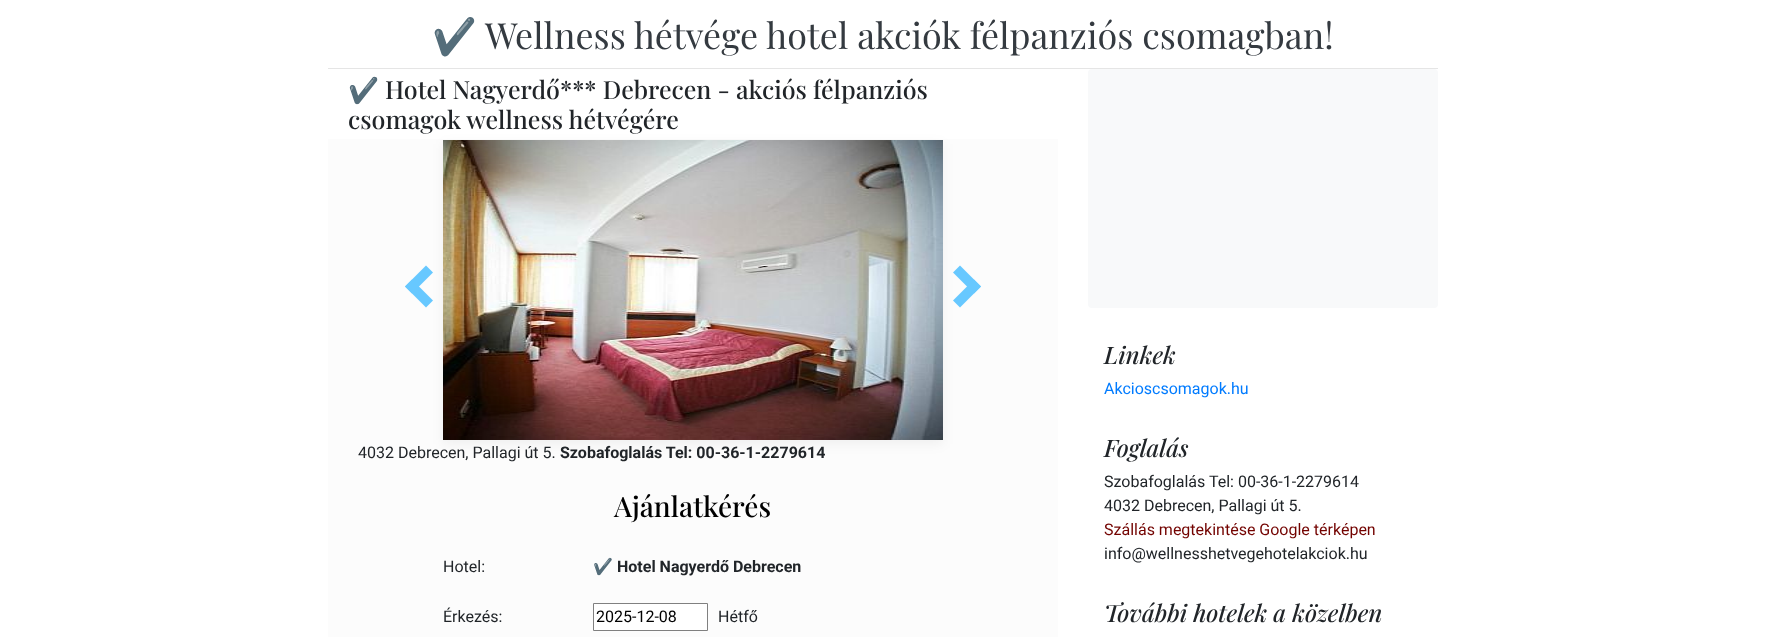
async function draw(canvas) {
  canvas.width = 1766;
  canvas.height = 637;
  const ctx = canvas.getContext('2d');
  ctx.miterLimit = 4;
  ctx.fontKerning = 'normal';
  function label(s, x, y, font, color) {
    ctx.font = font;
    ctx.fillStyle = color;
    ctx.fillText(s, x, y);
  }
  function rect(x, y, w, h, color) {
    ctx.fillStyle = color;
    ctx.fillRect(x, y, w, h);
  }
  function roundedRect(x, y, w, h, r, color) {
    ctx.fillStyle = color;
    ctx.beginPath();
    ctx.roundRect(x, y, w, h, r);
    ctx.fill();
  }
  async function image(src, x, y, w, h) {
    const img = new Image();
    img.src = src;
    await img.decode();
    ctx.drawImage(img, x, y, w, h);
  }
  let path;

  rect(0, 0, 1766, 637, '#fff');
  rect(328, 68, 1110, 1, '#e5e5e5');
  label('✔️', 432, 49, '36px Noto Color Emoji', '#343a40');
  label('Wellness hétvége hotel akciók félpanziós csomagban!', 485, 49, '36px Playfair Display', '#343a40');
  label('✔️', 348, 99, '25px Noto Color Emoji', '#212529');
  label('Hotel Nagyerdő*** Debrecen - akciós félpanziós', 385, 99, '500 25px Playfair Display', '#212529');
  label('csomagok wellness hétvégére', 348, 129, '500 25px Playfair Display', '#212529');
  rect(328, 139, 730, 498, '#fcfcfc');
  ctx.fillStyle = '#0000000d';
  ctx.filter = 'blur(6px)';
  ctx.beginPath();
  ctx.rect(443, 144, 500, 300);
  ctx.fill();
  ctx.filter = 'none';
  ctx.fillStyle = '#67c8ff';
  path = new Path2D('M433 300.5L426 307.5L405 286.5L412 279.5Z');
  ctx.fill(path);
  path = new Path2D('M433 272.5L412 293.5L405 286.5L426 265.5Z');
  ctx.fill(path);
  await image('assets/img1.png', 443, 140, 500, 300);
  path = new Path2D('M953 272.5L960 265.5L981 286.5L974 293.5Z');
  ctx.fill(path);
  path = new Path2D('M953 300.5L974 279.5L981 286.5L960 307.5Z');
  ctx.fill(path);
  label('4032 Debrecen, Pallagi út 5.', 358, 458, '16px Roboto', '#212529');
  label('Szobafoglalás Tel: 00-36-1-2279614', 560, 458, 'bold 16px Roboto', '#212529');
  label('Ajánlatkérés', 614, 517, '500 28px Playfair Display', '#000');
  label('Hotel:', 443, 572, '16px Roboto', '#212529');
  label('✔️', 593, 572, 'bold 16px Noto Color Emoji', '#212529');
  label('Hotel Nagyerdő Debrecen', 617, 572, 'bold 16px Roboto', '#212529');
  label('Érkezés:', 443, 622, '16px Roboto', '#212529');
  ctx.fillStyle = '#fff';
  ctx.beginPath();
  ctx.rect(593.5, 603.5, 114, 27);
  ctx.fill();
  ctx.strokeStyle = '#808080';
  ctx.stroke();
  label('2025-12-08', 596, 622, '16px Roboto', '#000');
  label('Hétfő', 718, 622, '16px Roboto', '#212529');
  roundedRect(1088, 69, 350, 239, 4, '#f8f9fa');
  label('Linkek', 1104, 364, 'italic 500 24px Playfair Display', '#212529');
  label('Akcioscsomagok.hu', 1104, 394, '16px Roboto', '#007bff');
  label('Foglalás', 1104, 457, 'italic 500 24px Playfair Display', '#212529');
  label('Szobafoglalás Tel: 00-36-1-2279614', 1104, 487, '16px Roboto', '#212529');
  label('4032 Debrecen, Pallagi út 5.', 1104, 511, '16px Roboto', '#212529');
  label('Szállás megtekintése Google térképen', 1104, 535, '16px Roboto', '#730300');
  label('info@wellnesshetvegehotelakciok.hu', 1104, 559, '16px Roboto', '#212529');
  label('További hotelek a közelben', 1104, 622, 'italic 500 24px Playfair Display', '#212529');
}

draw(document.querySelector('canvas'));
